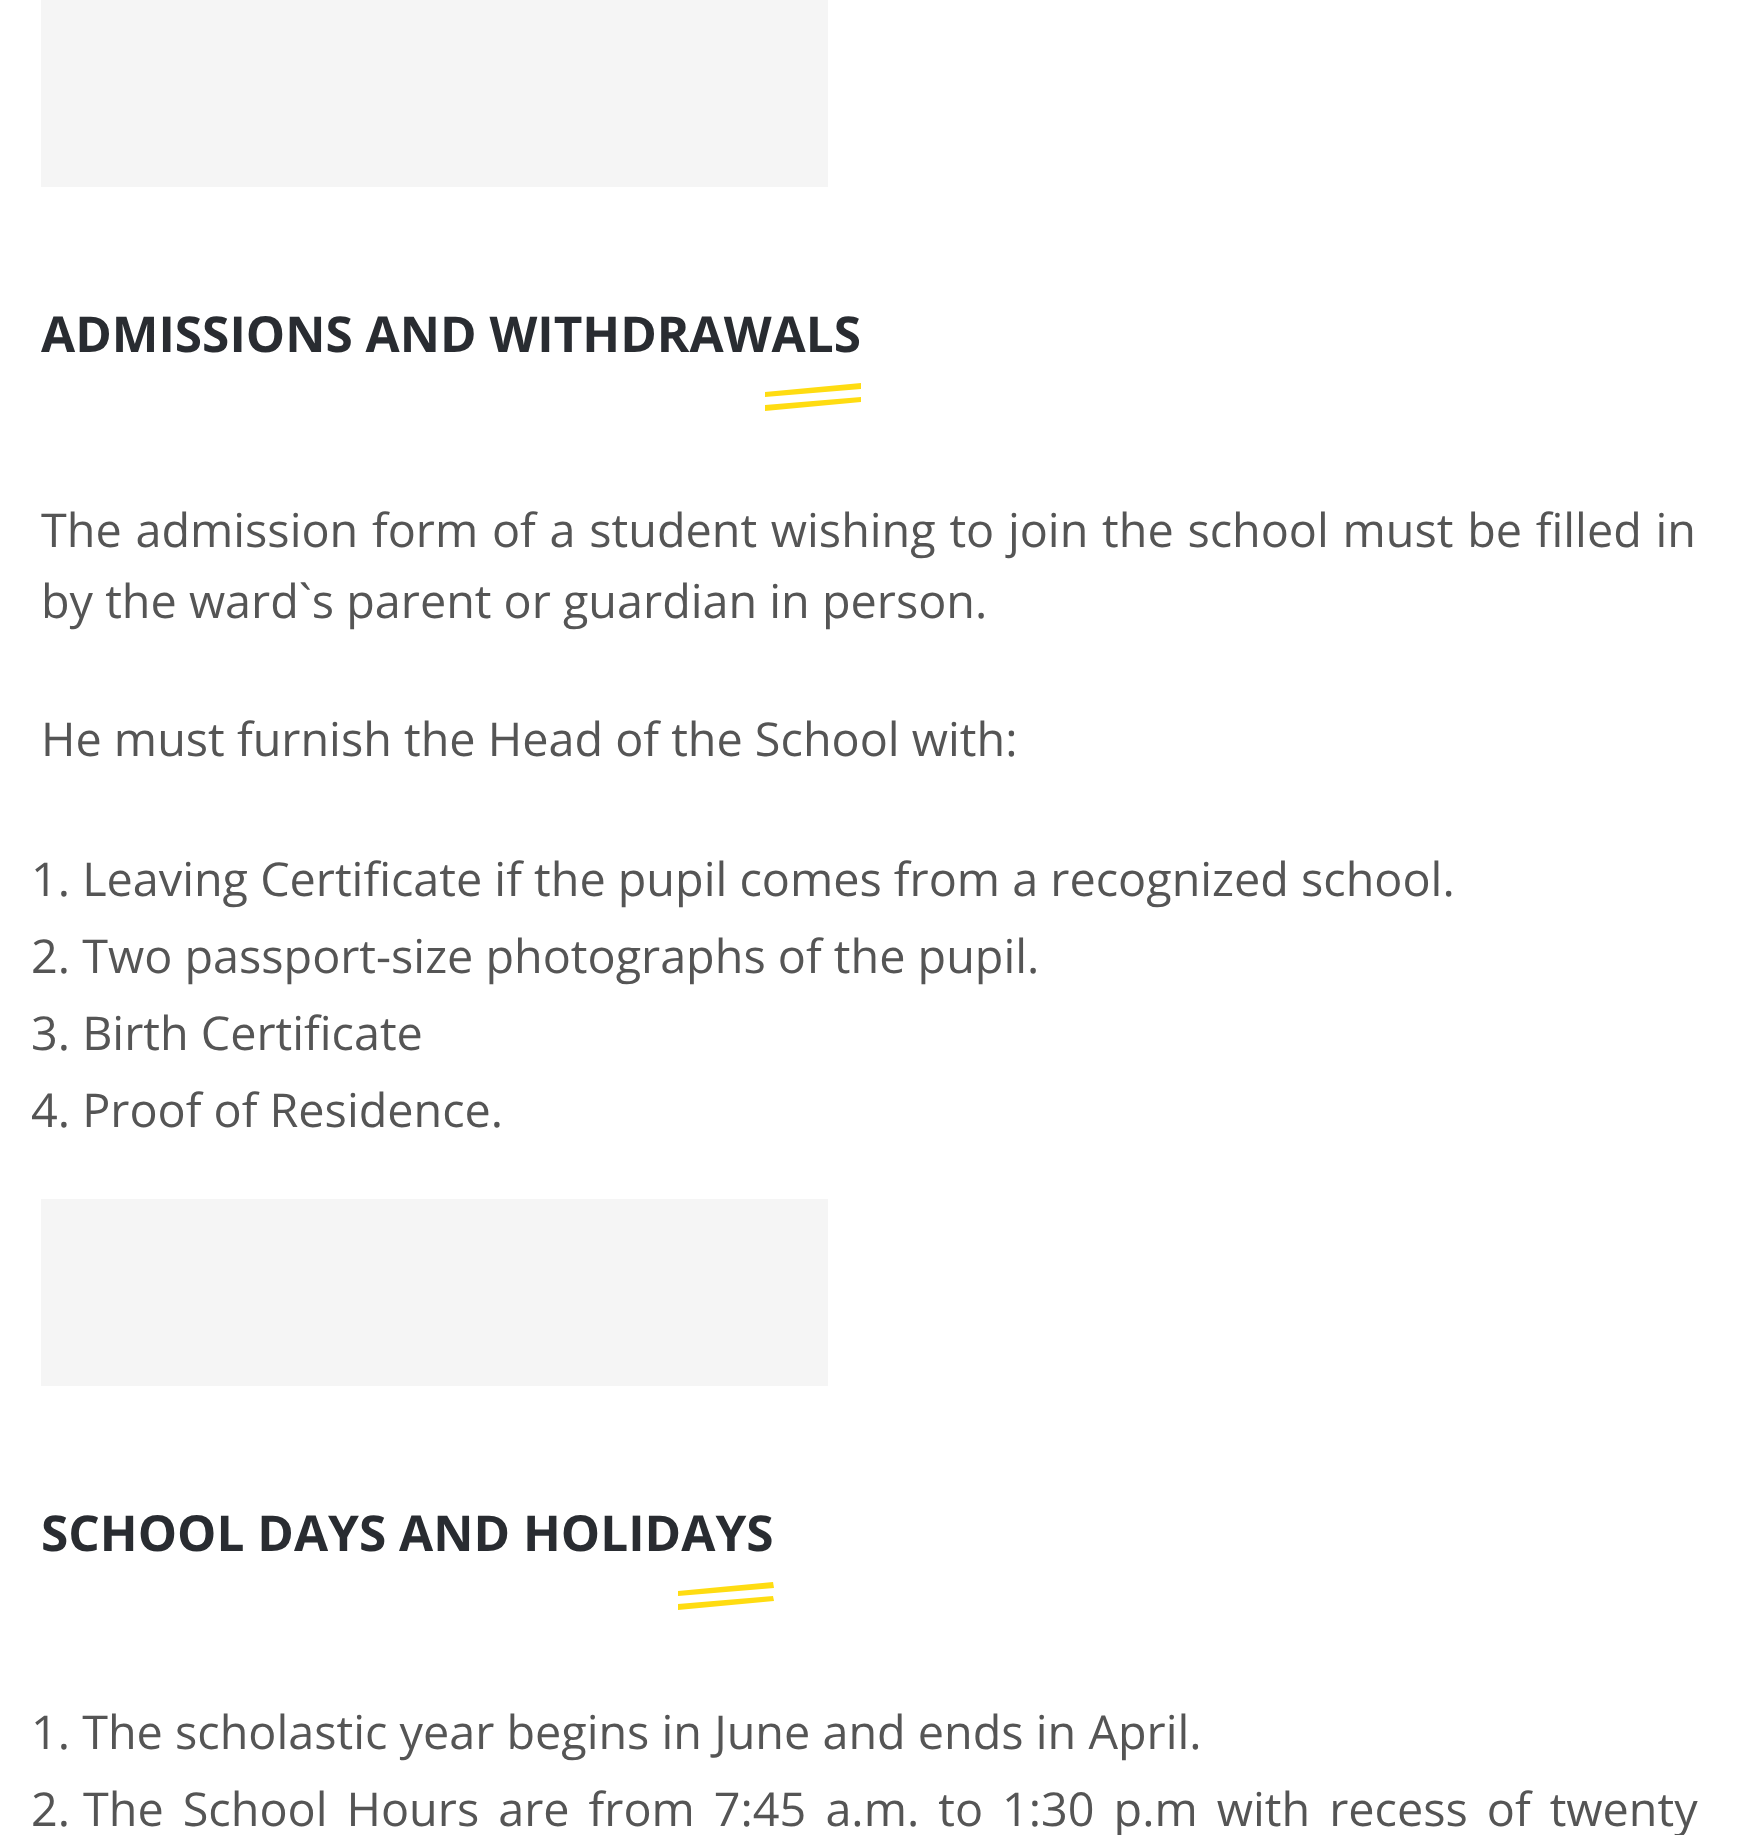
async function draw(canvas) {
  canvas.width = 1737;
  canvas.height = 1835;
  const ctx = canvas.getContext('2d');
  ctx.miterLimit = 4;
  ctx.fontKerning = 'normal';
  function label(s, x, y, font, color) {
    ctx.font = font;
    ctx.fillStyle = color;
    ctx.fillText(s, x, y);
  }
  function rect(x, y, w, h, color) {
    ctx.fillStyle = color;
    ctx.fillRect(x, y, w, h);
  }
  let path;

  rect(0, 0, 1737, 1835, '#fff');
  rect(41, 0, 787, 187, '#f5f5f5');
  label('ADMISSIONS AND WITHDRAWALS', 41, 352, 'bold 49.5px Open Sans', '#292c31');
  ctx.fillStyle = '#ffdc11';
  path = new Path2D('M765 392L861 383V389L765 397Z');
  ctx.fill(path);
  path = new Path2D('M765 405L861 397V402L765 411Z');
  ctx.fill(path);
  ctx.wordSpacing = '1.6px';
  label('The admission form of a student wishing to join the school must be filled in', 41, 547, '46.75px Open Sans', '#555');
  ctx.wordSpacing = '0px';
  label('by the ward`s parent or guardian in person.', 41, 618, '46.75px Open Sans', '#555');
  label('He must furnish the Head of the School with:', 41, 756, '46.75px Open Sans', '#555');
  label('1. Leaving Certificate if the pupil comes from a recognized school.', 31, 896, '46.75px Open Sans', '#555');
  label('2. Two passport-size photographs of the pupil.', 31, 973, '46.75px Open Sans', '#555');
  label('3. Birth Certificate', 31, 1050, '46.75px Open Sans', '#555');
  label('4. Proof of Residence.', 31, 1127, '46.75px Open Sans', '#555');
  rect(41, 1199, 787, 187, '#f5f5f5');
  label('SCHOOL DAYS AND HOLIDAYS', 41, 1551, 'bold 49.5px Open Sans', '#292c31');
  ctx.fillStyle = '#ffdc11';
  path = new Path2D('M678 1591L773 1582L774 1588L678 1596Z');
  ctx.fill(path);
  path = new Path2D('M678 1604L773 1596L774 1601L678 1610Z');
  ctx.fill(path);
  label('1. The scholastic year begins in June and ends in April.', 31, 1749, '46.75px Open Sans', '#555');
  label('2.', 31, 1826, '46.75px Open Sans', '#555');
  ctx.wordSpacing = '6.9px';
  label('The School Hours are from 7:45 a.m. to 1:30 p.m with recess of twenty', 83, 1826, '46.75px Open Sans', '#555');
}

draw(document.querySelector('canvas'));
